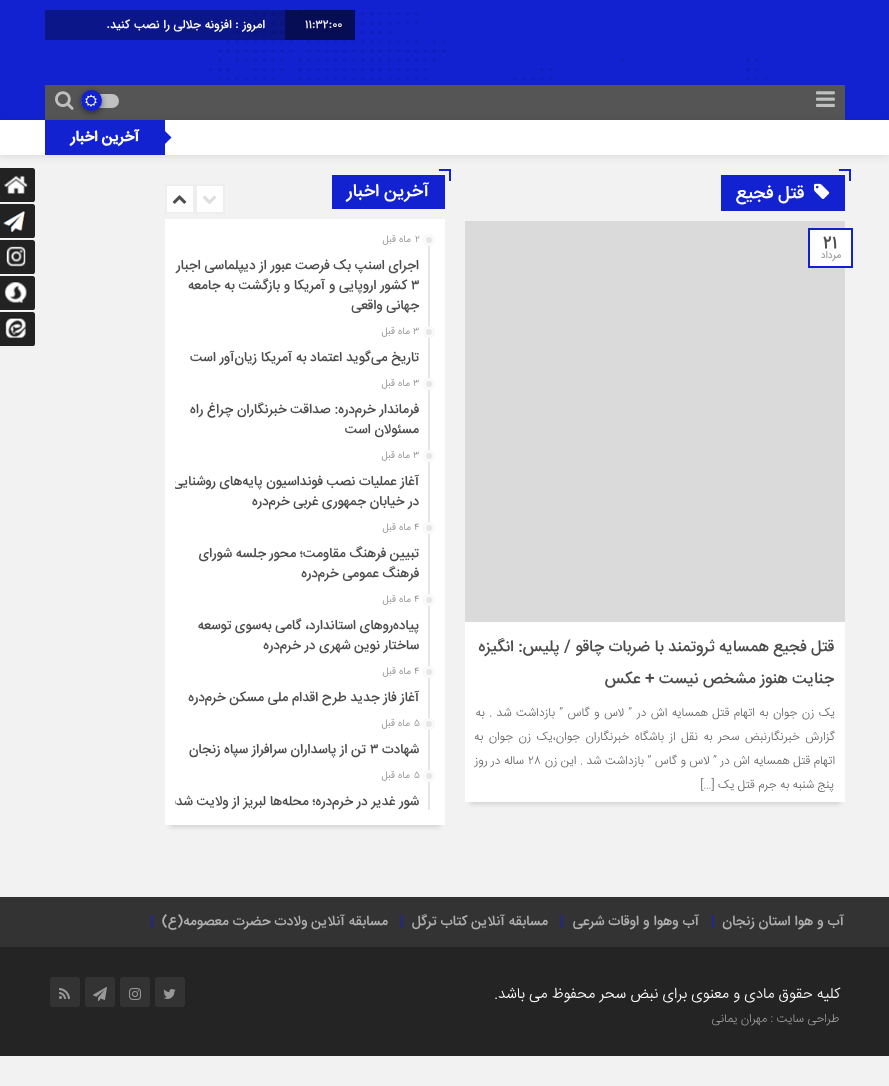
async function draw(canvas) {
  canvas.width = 889;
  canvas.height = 1086;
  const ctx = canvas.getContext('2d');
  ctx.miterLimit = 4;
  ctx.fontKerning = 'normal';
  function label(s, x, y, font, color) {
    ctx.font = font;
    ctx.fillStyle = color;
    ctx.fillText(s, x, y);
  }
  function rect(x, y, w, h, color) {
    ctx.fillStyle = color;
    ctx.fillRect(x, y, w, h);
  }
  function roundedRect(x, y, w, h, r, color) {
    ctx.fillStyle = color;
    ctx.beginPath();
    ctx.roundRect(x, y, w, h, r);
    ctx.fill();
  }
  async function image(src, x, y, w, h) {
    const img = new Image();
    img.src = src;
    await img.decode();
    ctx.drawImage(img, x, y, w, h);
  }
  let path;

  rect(0, 0, 889, 1086, '#f2f2f2');
  rect(0, 0, 889, 120, '#1222d1');
  await image('assets/img1.png', 208, 12, 560, 69);
  rect(285, 10, 70, 30, '#00000099');
  label('11:32:00', 305, 28, '500 12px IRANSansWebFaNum', '#eee');
  rect(45, 10, 240, 30, '#00000059');
  ctx.direction = 'rtl';
  label('امروز : افزونه جلالی را نصب کنید.', 265, 28, '500 12px IRANSansWebFaNum', '#fff');
  rect(45, 85, 800, 35, '#555');
  await image('assets/img2.png', 816, 91, 19, 16);
  roundedRect(81, 94, 38, 14, 7, '#bfc0c0');
  await image('assets/img4.png', 55, 91, 19, 19);
  ctx.fillStyle = '#00000080';
  ctx.filter = 'blur(3px)';
  ctx.beginPath();
  ctx.roundRect(81, 92, 21, 21, 10.5);
  ctx.fill();
  ctx.filter = 'none';
  ctx.fillStyle = '#1222d1';
  ctx.beginPath();
  ctx.arc(91.5, 100.5, 10.5, 0, 2 * Math.PI);
  ctx.fill();
  await image('assets/img3.png', 85, 94, 12, 13);
  ctx.fillStyle = '#0000001a';
  ctx.filter = 'blur(4px)';
  ctx.beginPath();
  ctx.rect(0, 121, 889, 35);
  ctx.fill();
  ctx.filter = 'none';
  rect(0, 120, 889, 35, '#fff');
  rect(46, 120, 119, 35, '#1222d1');
  rect(45, 120, 1, 35, '#1121cb');
  ctx.fillStyle = '#1222d1';
  path = new Path2D('M165 131L171.5 137.5L165 144L158.5 137.5Z');
  ctx.fill(path);
  label('آخرین اخبار', 139, 141, 'bold 15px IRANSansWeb', '#fff');
  rect(721, 175, 124, 36, '#1222d1');
  rect(839, 169, 12, 2, '#1222d1');
  rect(849, 169, 2, 12, '#1222d1');
  await image('assets/img5.png', 814, 183, 16, 16);
  label('قتل فجیع', 804, 198, '500 18px IRANSansWeb', '#fff');
  ctx.fillStyle = '#cfcfcf';
  ctx.filter = 'blur(2.5px)';
  ctx.beginPath();
  ctx.rect(470, 233, 370, 571);
  ctx.fill();
  ctx.filter = 'none';
  rect(465, 622, 380, 180, '#fff');
  rect(465, 221, 380, 401, '#dadada');
  ctx.fillStyle = '#fff';
  ctx.beginPath();
  ctx.rect(809, 229, 43, 38);
  ctx.fill();
  ctx.strokeStyle = '#1222d1';
  ctx.lineWidth = 2;
  ctx.stroke();
  ctx.direction = 'ltr';
  label('21', 823, 248, '500 18px IRANSansWebFaNum', '#4d4d4d');
  ctx.direction = 'rtl';
  label('مرداد', 841, 258, 'bold 10px "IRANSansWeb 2"', '#999');
  label('قتل فجیع همسایه ثروتمند با ضربات چاقو / پلیس: انگیزه', 834, 651, '500 16px IRANSansWeb', '#4d4d4d');
  label('جنایت هنوز مشخص نیست + عکس', 834, 683, '500 16px IRANSansWeb', '#4d4d4d');
  ctx.wordSpacing = '1px';
  label('یک زن جوان به اتهام قتل همسایه اش در ” لاس و گاس ” بازداشت شد . به', 835, 716, '300 12px IRANSansWeb', '#666');
  ctx.wordSpacing = '2px';
  label('گزارش خبرنگارنبض سحر به نقل از باشگاه خبرنگاران جوان،یک زن جوان به', 835, 740, '300 12px IRANSansWeb', '#666');
  ctx.wordSpacing = '0.1px';
  label('اتهام قتل همسایه اش در ” لاس و گاس ” بازداشت شد . این زن', 835, 764, '300 12px IRANSansWeb', '#666');
  ctx.wordSpacing = '0px';
  ctx.direction = 'ltr';
  label('۲۸', 528, 764, '300 12px IRANSansWeb', '#666');
  ctx.wordSpacing = '0.1px';
  ctx.direction = 'rtl';
  label('ساله در روز', 524, 764, '300 12px IRANSansWeb', '#666');
  ctx.wordSpacing = '0px';
  label('پنج شنبه به جرم قتل یک […]', 834, 788, '300 12px IRANSansWeb', '#666');
  rect(332, 175, 113, 34, '#1222d1');
  rect(439, 169, 12, 2, '#1222d1');
  rect(449, 169, 2, 12, '#1222d1');
  label('آخرین اخبار', 429, 196, '500 18px IRANSansWeb', '#fff');
  ctx.fillStyle = '#cfcfcf';
  ctx.filter = 'blur(2.5px)';
  ctx.beginPath();
  ctx.rect(170, 231, 270, 596);
  ctx.fill();
  ctx.filter = 'none';
  rect(165, 219, 280, 606, '#fff');
  ctx.beginPath();
  ctx.rect(196, 185, 28, 28);
  ctx.fill();
  ctx.strokeStyle = '#eee';
  ctx.stroke();
  await image('assets/img6.png', 202, 195, 15, 10);
  ctx.beginPath();
  ctx.rect(166, 185, 28, 28);
  ctx.fill();
  ctx.stroke();
  await image('assets/img7.png', 172, 195, 15, 9);
  rect(428, 234, 2, 576, '#e6e6e6');
  ctx.beginPath();
  ctx.arc(429, 240, 6, 0, 2 * Math.PI);
  ctx.fill();
  ctx.beginPath();
  ctx.arc(429, 240, 4.5, 0, 2 * Math.PI);
  ctx.strokeStyle = '#ffffffcc';
  ctx.lineWidth = 3;
  ctx.stroke();
  ctx.direction = 'ltr';
  label('2', 415, 242, '300 10px IRANSansWebFaNum', '#888');
  ctx.direction = 'rtl';
  label('ماه', 411, 242, '300 10px IRANSansWebFaNum', '#888');
  label('قبل', 396, 242, '300 10px IRANSansWebFaNum', '#888');
  ctx.save();
  ctx.beginPath();
  ctx.rect(175, 234, 260, 576);
  ctx.clip();
  label('اجرای اسنپ بک فرصت عبور از دیپلماسی اجباری', 419, 269, '500 13.5px IRANSansWeb', '#4d4d4d');
  ctx.restore();
  ctx.direction = 'ltr';
  label('۳', 411, 289, '500 13.5px IRANSansWeb', '#4d4d4d');
  ctx.direction = 'rtl';
  label('کشور اروپایی و آمریکا و بازگشت به جامعه', 407, 289, '500 13.5px IRANSansWeb', '#4d4d4d');
  label('جهانی واقعی', 419, 309, '500 13.5px IRANSansWeb', '#4d4d4d');
  ctx.fillStyle = '#e6e6e6';
  ctx.beginPath();
  ctx.arc(429, 332, 6, 0, 2 * Math.PI);
  ctx.fill();
  ctx.beginPath();
  ctx.arc(429, 332, 4.5, 0, 2 * Math.PI);
  ctx.stroke();
  ctx.direction = 'ltr';
  label('3', 413, 334, '300 10px IRANSansWebFaNum', '#888');
  ctx.direction = 'rtl';
  label('ماه', 410, 334, '300 10px IRANSansWebFaNum', '#888');
  label('قبل', 395, 334, '300 10px IRANSansWebFaNum', '#888');
  label('تاریخ می‌گوید اعتماد به آمریکا زیان‌آور است', 419, 361, '500 13.5px IRANSansWeb', '#4d4d4d');
  ctx.fillStyle = '#e6e6e6';
  ctx.beginPath();
  ctx.arc(429, 384, 6, 0, 2 * Math.PI);
  ctx.fill();
  ctx.beginPath();
  ctx.arc(429, 384, 4.5, 0, 2 * Math.PI);
  ctx.stroke();
  ctx.direction = 'ltr';
  label('3', 413, 386, '300 10px IRANSansWebFaNum', '#888');
  ctx.direction = 'rtl';
  label('ماه', 410, 386, '300 10px IRANSansWebFaNum', '#888');
  label('قبل', 395, 386, '300 10px IRANSansWebFaNum', '#888');
  label('فرماندار خرم‌دره: صداقت خبرنگاران چراغ راه', 419, 413, '500 13.5px IRANSansWeb', '#4d4d4d');
  label('مسئولان است', 419, 433, '500 13.5px IRANSansWeb', '#4d4d4d');
  ctx.fillStyle = '#e6e6e6';
  ctx.beginPath();
  ctx.arc(429, 456, 6, 0, 2 * Math.PI);
  ctx.fill();
  ctx.beginPath();
  ctx.arc(429, 456, 4.5, 0, 2 * Math.PI);
  ctx.stroke();
  ctx.direction = 'ltr';
  label('3', 413, 458, '300 10px IRANSansWebFaNum', '#888');
  ctx.direction = 'rtl';
  label('ماه', 410, 458, '300 10px IRANSansWebFaNum', '#888');
  label('قبل', 395, 458, '300 10px IRANSansWebFaNum', '#888');
  ctx.save();
  ctx.beginPath();
  ctx.rect(175, 234, 260, 576);
  ctx.clip();
  label('آغاز عملیات نصب فونداسیون پایه‌های روشنایی', 419, 485, '500 13.5px IRANSansWeb', '#4d4d4d');
  ctx.restore();
  label('در خیابان جمهوری غربی خرم‌دره', 419, 505, '500 13.5px IRANSansWeb', '#4d4d4d');
  ctx.fillStyle = '#e6e6e6';
  ctx.beginPath();
  ctx.arc(429, 528, 6, 0, 2 * Math.PI);
  ctx.fill();
  ctx.beginPath();
  ctx.arc(429, 528, 4.5, 0, 2 * Math.PI);
  ctx.stroke();
  ctx.direction = 'ltr';
  label('4', 414, 530, '300 10px IRANSansWebFaNum', '#888');
  ctx.direction = 'rtl';
  label('ماه', 411, 530, '300 10px IRANSansWebFaNum', '#888');
  label('قبل', 396, 530, '300 10px IRANSansWebFaNum', '#888');
  label('تبیین فرهنگ مقاومت؛ محور', 419, 557, '500 13.5px IRANSansWeb', '#4d4d4d');
  label('جلسه شورای', 266, 557, '500 13.5px IRANSansWeb', '#4d4d4d');
  label('فرهنگ عمومی خرم‌دره', 419, 577, '500 13.5px IRANSansWeb', '#4d4d4d');
  ctx.fillStyle = '#e6e6e6';
  ctx.beginPath();
  ctx.arc(429, 600, 6, 0, 2 * Math.PI);
  ctx.fill();
  ctx.beginPath();
  ctx.arc(429, 600, 4.5, 0, 2 * Math.PI);
  ctx.stroke();
  ctx.direction = 'ltr';
  label('4', 414, 602, '300 10px IRANSansWebFaNum', '#888');
  ctx.direction = 'rtl';
  label('ماه', 411, 602, '300 10px IRANSansWebFaNum', '#888');
  label('قبل', 396, 602, '300 10px IRANSansWebFaNum', '#888');
  label('پیاده‌روهای استاندارد، گامی به‌سوی توسعه', 419, 629, '500 13.5px IRANSansWeb', '#4d4d4d');
  label('ساختار نوین شهری در خرم‌دره', 419, 649, '500 13.5px IRANSansWeb', '#4d4d4d');
  ctx.fillStyle = '#e6e6e6';
  ctx.beginPath();
  ctx.arc(429, 672, 6, 0, 2 * Math.PI);
  ctx.fill();
  ctx.beginPath();
  ctx.arc(429, 672, 4.5, 0, 2 * Math.PI);
  ctx.stroke();
  ctx.direction = 'ltr';
  label('4', 414, 674, '300 10px IRANSansWebFaNum', '#888');
  ctx.direction = 'rtl';
  label('ماه', 411, 674, '300 10px IRANSansWebFaNum', '#888');
  label('قبل', 396, 674, '300 10px IRANSansWebFaNum', '#888');
  label('آغاز فاز جدید طرح اقدام ملی مسکن خرم‌دره', 419, 701, '500 13.5px IRANSansWeb', '#4d4d4d');
  ctx.fillStyle = '#e6e6e6';
  ctx.beginPath();
  ctx.arc(429, 724, 6, 0, 2 * Math.PI);
  ctx.fill();
  ctx.beginPath();
  ctx.arc(429, 724, 4.5, 0, 2 * Math.PI);
  ctx.stroke();
  ctx.direction = 'ltr';
  label('5', 414, 726, '300 10px IRANSansWebFaNum', '#888');
  ctx.direction = 'rtl';
  label('ماه', 410, 726, '300 10px IRANSansWebFaNum', '#888');
  label('قبل', 395, 726, '300 10px IRANSansWebFaNum', '#888');
  label('شهادت', 419, 753, '500 13.5px IRANSansWeb', '#4d4d4d');
  ctx.direction = 'ltr';
  label('۳', 370, 753, '500 13.5px IRANSansWeb', '#4d4d4d');
  ctx.direction = 'rtl';
  label('تن از پاسداران سرافراز سپاه زنجان', 366, 753, '500 13.5px IRANSansWeb', '#4d4d4d');
  ctx.fillStyle = '#e6e6e6';
  ctx.beginPath();
  ctx.arc(429, 776, 6, 0, 2 * Math.PI);
  ctx.fill();
  ctx.beginPath();
  ctx.arc(429, 776, 4.5, 0, 2 * Math.PI);
  ctx.stroke();
  ctx.direction = 'ltr';
  label('5', 414, 778, '300 10px IRANSansWebFaNum', '#888');
  ctx.direction = 'rtl';
  label('ماه', 410, 778, '300 10px IRANSansWebFaNum', '#888');
  label('قبل', 395, 778, '300 10px IRANSansWebFaNum', '#888');
  ctx.save();
  ctx.beginPath();
  ctx.rect(175, 234, 260, 576);
  ctx.clip();
  label('شور غدیر در خرم‌دره؛ محله‌ها لبریز از ولایت شدند', 419, 805, '500 13.5px IRANSansWeb', '#4d4d4d');
  ctx.restore();
  await image('assets/img8.png', 0, 168, 35, 34);
  await image('assets/img9.png', 0, 204, 35, 34);
  await image('assets/img10.png', 0, 240, 35, 34);
  await image('assets/img11.png', 0, 276, 35, 34);
  await image('assets/img12.png', 0, 312, 35, 34);
  rect(0, 897, 889, 50, '#333');
  label('آب و هوا استان زنجان', 844, 925, '500 14px IRANSansWeb', '#b0afaf');
  ctx.direction = 'ltr';
  label('|', 711, 925, '500 14px IRANSansWeb', '#1222d1');
  ctx.direction = 'rtl';
  label('آب وهوا و اوقات شرعی', 699, 925, '500 14px IRANSansWeb', '#b0afaf');
  ctx.direction = 'ltr';
  label('|', 560, 925, '500 14px IRANSansWeb', '#1222d1');
  ctx.direction = 'rtl';
  label('مسابقه آنلاین کتاب ترگل', 548, 925, '500 14px IRANSansWeb', '#b0afaf');
  ctx.direction = 'ltr';
  label('|', 400, 925, '500 14px IRANSansWeb', '#1222d1');
  ctx.direction = 'rtl';
  label('مسابقه آنلاین ولادت حضرت معصومه(ع)', 388, 925, '500 14px IRANSansWeb', '#b0afaf');
  ctx.direction = 'ltr';
  label('|', 150, 925, '500 14px IRANSansWeb', '#1222d1');
  rect(0, 947, 889, 109, '#242424');
  ctx.direction = 'rtl';
  label('کلیه حقوق مادی و معنوی برای نبض سحر محفوظ می باشد.', 840, 998, '300 15px IRANSansWeb', '#fff');
  label('طراحی سایت : مهران یمانی', 839, 1022, '300 12px IRANSansWeb', '#999');
  roundedRect(155, 977, 30, 30, 3, '#333');
  await image('assets/img13.png', 163, 989, 13, 10);
  roundedRect(120, 977, 30, 30, 3, '#333');
  await image('assets/img14.png', 129, 988, 12, 12);
  roundedRect(85, 977, 30, 30, 3, '#333');
  await image('assets/img15.png', 93, 987, 14, 14);
  roundedRect(50, 977, 30, 30, 3, '#333');
  await image('assets/img16.png', 59, 988, 11, 11);
}

draw(document.querySelector('canvas'));
